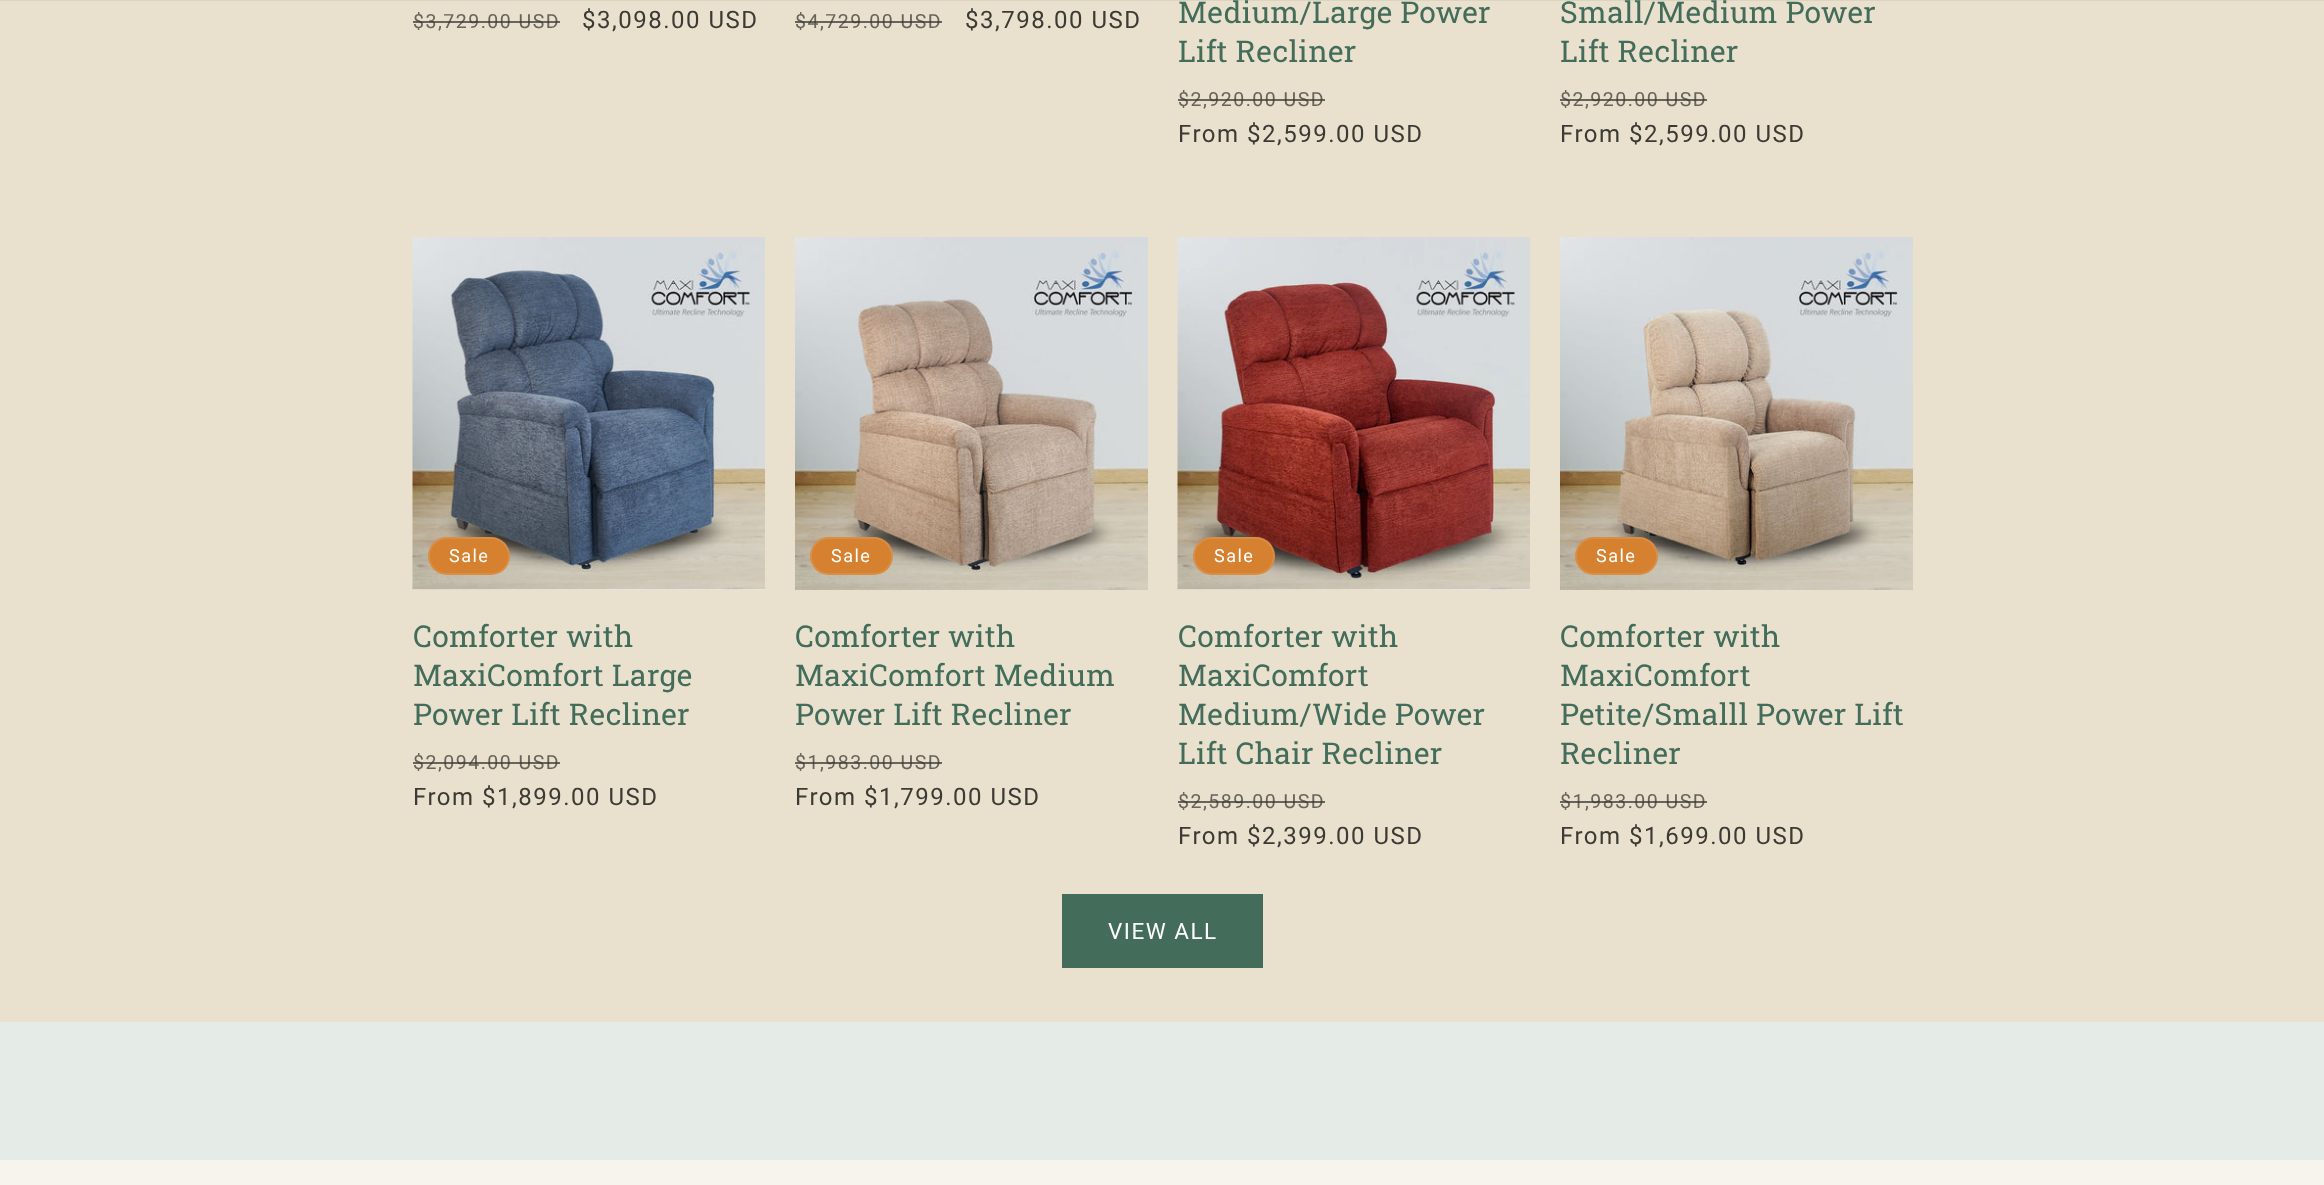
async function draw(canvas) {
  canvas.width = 2324;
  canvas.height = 1185;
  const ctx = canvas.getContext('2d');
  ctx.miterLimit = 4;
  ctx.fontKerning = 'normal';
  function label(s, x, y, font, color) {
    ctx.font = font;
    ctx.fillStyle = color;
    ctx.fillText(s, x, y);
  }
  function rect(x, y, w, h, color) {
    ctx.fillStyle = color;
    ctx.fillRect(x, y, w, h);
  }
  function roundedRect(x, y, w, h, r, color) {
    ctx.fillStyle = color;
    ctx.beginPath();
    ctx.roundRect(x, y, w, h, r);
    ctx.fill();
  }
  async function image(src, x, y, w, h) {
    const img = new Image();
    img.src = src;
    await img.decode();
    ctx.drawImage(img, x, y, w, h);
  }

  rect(0, 0, 2324, 1185, '#e5ece7');
  rect(0, 0, 2324, 1022, '#e9e1cd');
  rect(0, 0, 2324, 1, '#3c3a3514');
  ctx.letterSpacing = '1.5px';
  label('$3,729.00 USD', 413, 28, '19.5px Roboto', '#67645b');
  rect(413, 21, 147, 2, '#3c3a35bf');
  label('$3,098.00 USD', 582, 28, '24px Roboto', '#3c3a35');
  label('$4,729.00 USD', 795, 28, '19.5px Roboto', '#67645b');
  rect(795, 21, 147, 2, '#3c3a35bf');
  label('$3,798.00 USD', 965, 28, '24px Roboto', '#3c3a35');
  ctx.letterSpacing = '0.3px';
  label('Medium/Large Power', 1178, 23, '30px Roboto Slab', '#436c5b');
  label('Lift Recliner', 1178, 62, '30px Roboto Slab', '#436c5b');
  ctx.letterSpacing = '1.5px';
  label('$2,920.00 USD', 1178, 106, '19.5px Roboto', '#67645b');
  rect(1178, 99, 147, 2, '#3c3a35bf');
  label('From $2,599.00 USD', 1178, 142, '24px Roboto', '#3c3a35');
  ctx.letterSpacing = '0.3px';
  label('Small/Medium Power', 1560, 23, '30px Roboto Slab', '#436c5b');
  label('Lift Recliner', 1560, 62, '30px Roboto Slab', '#436c5b');
  ctx.letterSpacing = '1.5px';
  label('$2,920.00 USD', 1560, 106, '19.5px Roboto', '#67645b');
  rect(1560, 99, 147, 2, '#3c3a35bf');
  label('From $2,599.00 USD', 1560, 142, '24px Roboto', '#3c3a35');
  rect(413, 589, 352, 1, '#fff');
  await image('assets/img1.png', 412, 237, 353, 353);
  roundedRect(428, 537, 82, 38, 19, '#d58130');
  ctx.beginPath();
  ctx.roundRect(429, 538, 80, 36, 18);
  ctx.strokeStyle = '#ffffff1a';
  ctx.lineWidth = 2;
  ctx.stroke();
  label('Sale', 449, 562, '18px Roboto', '#fff');
  ctx.letterSpacing = '0.3px';
  label('Comforter with', 413, 647, '30px Roboto Slab', '#436c5b');
  label('MaxiComfort Large', 413, 686, '30px Roboto Slab', '#436c5b');
  label('Power Lift Recliner', 413, 725, '30px Roboto Slab', '#436c5b');
  ctx.letterSpacing = '1.5px';
  label('$2,094.00 USD', 413, 769, '19.5px Roboto', '#67645b');
  rect(413, 762, 147, 2, '#3c3a35bf');
  label('From $1,899.00 USD', 413, 805, '24px Roboto', '#3c3a35');
  await image('assets/img2.png', 795, 237, 353, 353);
  roundedRect(810, 537, 83, 38, 19, '#d58130');
  ctx.beginPath();
  ctx.roundRect(811, 538, 81, 36, 18);
  ctx.stroke();
  label('Sale', 831, 562, '18px Roboto', '#fff');
  ctx.letterSpacing = '0.3px';
  label('Comforter with', 795, 647, '30px Roboto Slab', '#436c5b');
  label('MaxiComfort Medium', 795, 686, '30px Roboto Slab', '#436c5b');
  label('Power Lift Recliner', 795, 725, '30px Roboto Slab', '#436c5b');
  ctx.letterSpacing = '1.5px';
  label('$1,983.00 USD', 795, 769, '19.5px Roboto', '#67645b');
  rect(795, 762, 147, 2, '#3c3a35bf');
  label('From $1,799.00 USD', 795, 805, '24px Roboto', '#3c3a35');
  rect(1178, 589, 352, 1, '#fff');
  await image('assets/img3.png', 1177, 237, 353, 353);
  roundedRect(1193, 537, 82, 38, 19, '#d58130');
  ctx.beginPath();
  ctx.roundRect(1194, 538, 80, 36, 18);
  ctx.stroke();
  label('Sale', 1214, 562, '18px Roboto', '#fff');
  ctx.letterSpacing = '0.3px';
  label('Comforter with', 1178, 647, '30px Roboto Slab', '#436c5b');
  label('MaxiComfort', 1178, 686, '30px Roboto Slab', '#436c5b');
  label('Medium/Wide Power', 1178, 725, '30px Roboto Slab', '#436c5b');
  label('Lift Chair Recliner', 1178, 764, '30px Roboto Slab', '#436c5b');
  ctx.letterSpacing = '1.5px';
  label('$2,589.00 USD', 1178, 808, '19.5px Roboto', '#67645b');
  rect(1178, 801, 147, 2, '#3c3a35bf');
  label('From $2,399.00 USD', 1178, 844, '24px Roboto', '#3c3a35');
  await image('assets/img4.png', 1560, 237, 353, 353);
  roundedRect(1575, 537, 83, 38, 19, '#d58130');
  ctx.beginPath();
  ctx.roundRect(1576, 538, 81, 36, 18);
  ctx.stroke();
  label('Sale', 1596, 562, '18px Roboto', '#fff');
  ctx.letterSpacing = '0.3px';
  label('Comforter with', 1560, 647, '30px Roboto Slab', '#436c5b');
  label('MaxiComfort', 1560, 686, '30px Roboto Slab', '#436c5b');
  label('Petite/Smalll Power Lift', 1560, 725, '30px Roboto Slab', '#436c5b');
  label('Recliner', 1560, 764, '30px Roboto Slab', '#436c5b');
  ctx.letterSpacing = '1.5px';
  label('$1,983.00 USD', 1560, 808, '19.5px Roboto', '#67645b');
  rect(1560, 801, 147, 2, '#3c3a35bf');
  label('From $1,699.00 USD', 1560, 844, '24px Roboto', '#3c3a35');
  rect(1062, 894, 201, 74, '#436c5b');
  label('VIEW ALL', 1108, 939, '22.5px Roboto', '#fff');
  rect(0, 1160, 2324, 25, '#f6f4ed');
}

draw(document.querySelector('canvas'));
